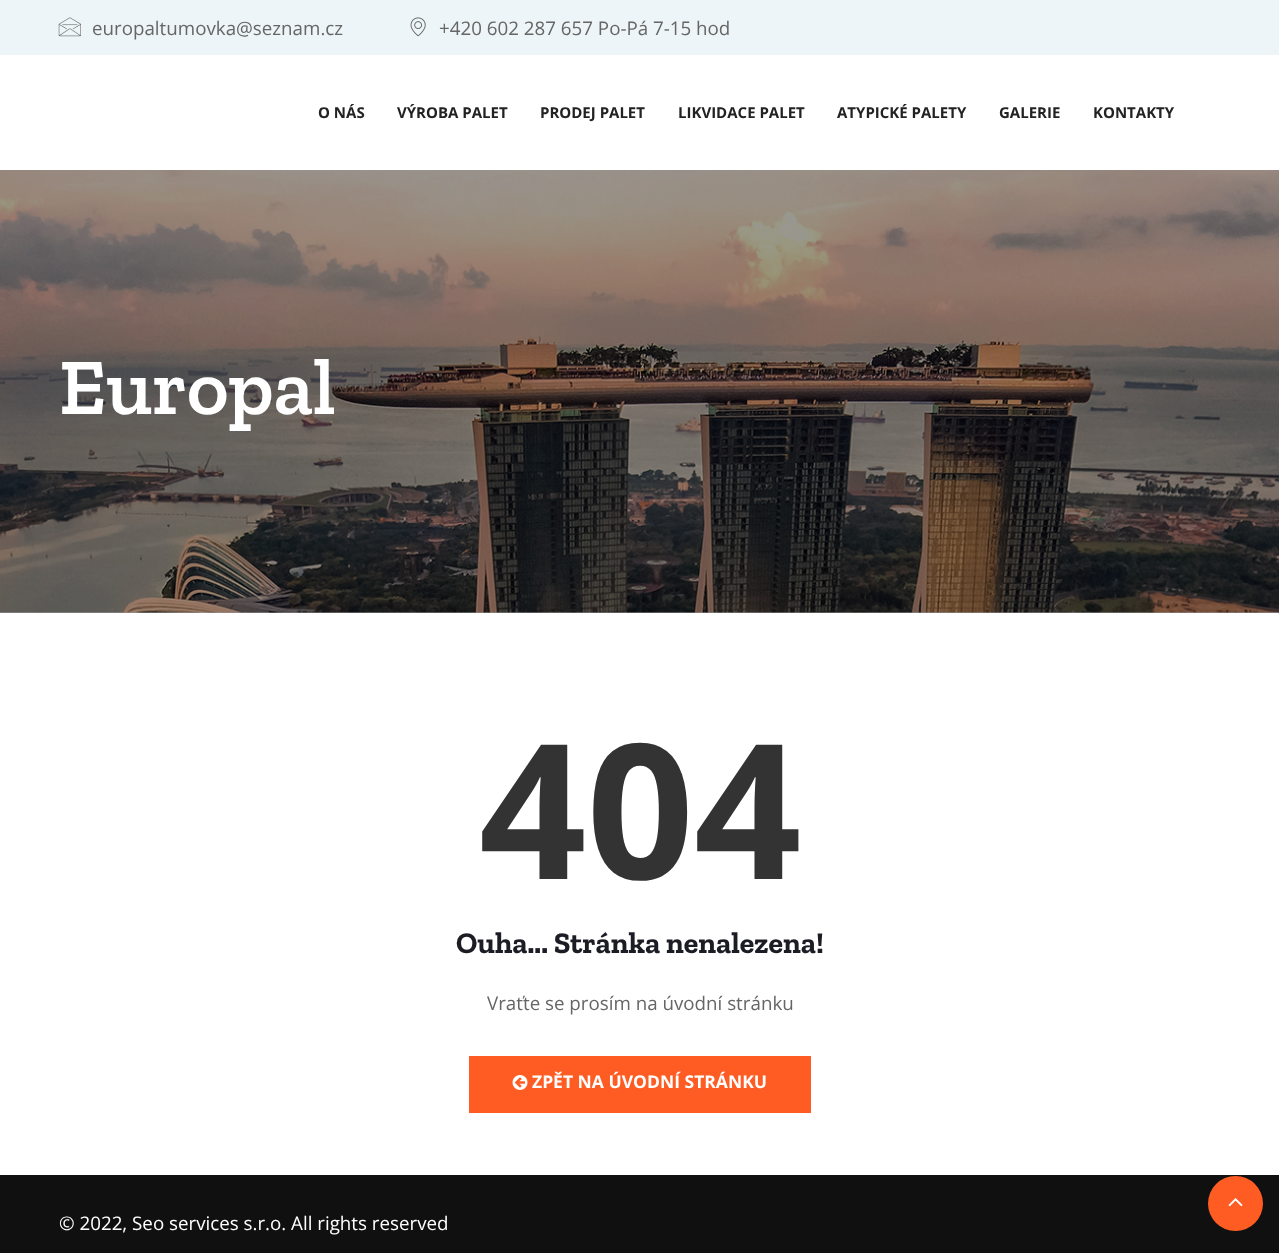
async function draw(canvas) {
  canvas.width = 1279;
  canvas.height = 1253;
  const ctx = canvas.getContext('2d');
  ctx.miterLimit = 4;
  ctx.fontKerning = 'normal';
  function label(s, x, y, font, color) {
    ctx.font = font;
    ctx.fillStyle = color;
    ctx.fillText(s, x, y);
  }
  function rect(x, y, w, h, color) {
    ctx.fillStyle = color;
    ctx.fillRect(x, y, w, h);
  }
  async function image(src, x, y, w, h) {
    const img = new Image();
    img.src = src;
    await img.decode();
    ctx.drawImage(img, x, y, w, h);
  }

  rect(0, 0, 1279, 1253, '#fff');
  rect(0, 612, 1279, 1, '#999');
  rect(0, 0, 1279, 55, '#edf5f8');
  await image('assets/img1.png', 58, 17, 23, 20);
  label('europaltumovka@seznam.cz', 92, 35, '18.75px Open Sans', '#666');
  await image('assets/img2.png', 410, 17, 16, 20);
  label('+420 602 287 657 Po-Pá 7-15 hod', 439, 35, '18.75px Open Sans', '#666');
  label('O NÁS', 318, 118, 'bold 15px Open Sans', '#222');
  label('VÝROBA PALET', 397, 118, 'bold 15px Open Sans', '#222');
  label('PRODEJ PALET', 540, 118, 'bold 15px Open Sans', '#222');
  label('LIKVIDACE PALET', 678, 118, 'bold 15px Open Sans', '#222');
  label('ATYPICKÉ PALETY', 837, 118, 'bold 15px Open Sans', '#222');
  label('GALERIE', 999, 118, 'bold 15px Open Sans', '#222');
  label('KONTAKTY', 1093, 118, 'bold 15px Open Sans', '#222');
  await image('assets/img3.png', 0, 170, 1279, 443);
  label('Europal', 59, 414, '600 80px Zilla Slab', '#fff');
  label('404', 479, 879, 'bold 188px Open Sans', '#333');
  label('Ouha... Stránka nenalezena!', 456, 953, 'bold 30px Zilla Slab', '#1c1c24');
  label('Vraťte se prosím na úvodní stránku', 487, 1010, '18.75px Open Sans', '#666');
  rect(469, 1056, 342, 57, '#ff5c23');
  await image('assets/img4.png', 512, 1075, 16, 15);
  label('ZPĚT NA ÚVODNÍ STRÁNKU', 532, 1088, 'bold 17.5px Open Sans', '#fff');
  rect(0, 1175, 1279, 78, '#101010');
  label('© 2022, Seo services s.r.o. All rights reserved', 59, 1230, '18.75px Open Sans', '#fff');
  ctx.fillStyle = '#ff5c23';
  ctx.beginPath();
  ctx.arc(1235.5, 1203.5, 27.5, 0, 2 * Math.PI);
  ctx.fill();
  await image('assets/img5.png', 1228, 1198, 15, 9);
}

draw(document.querySelector('canvas'));
